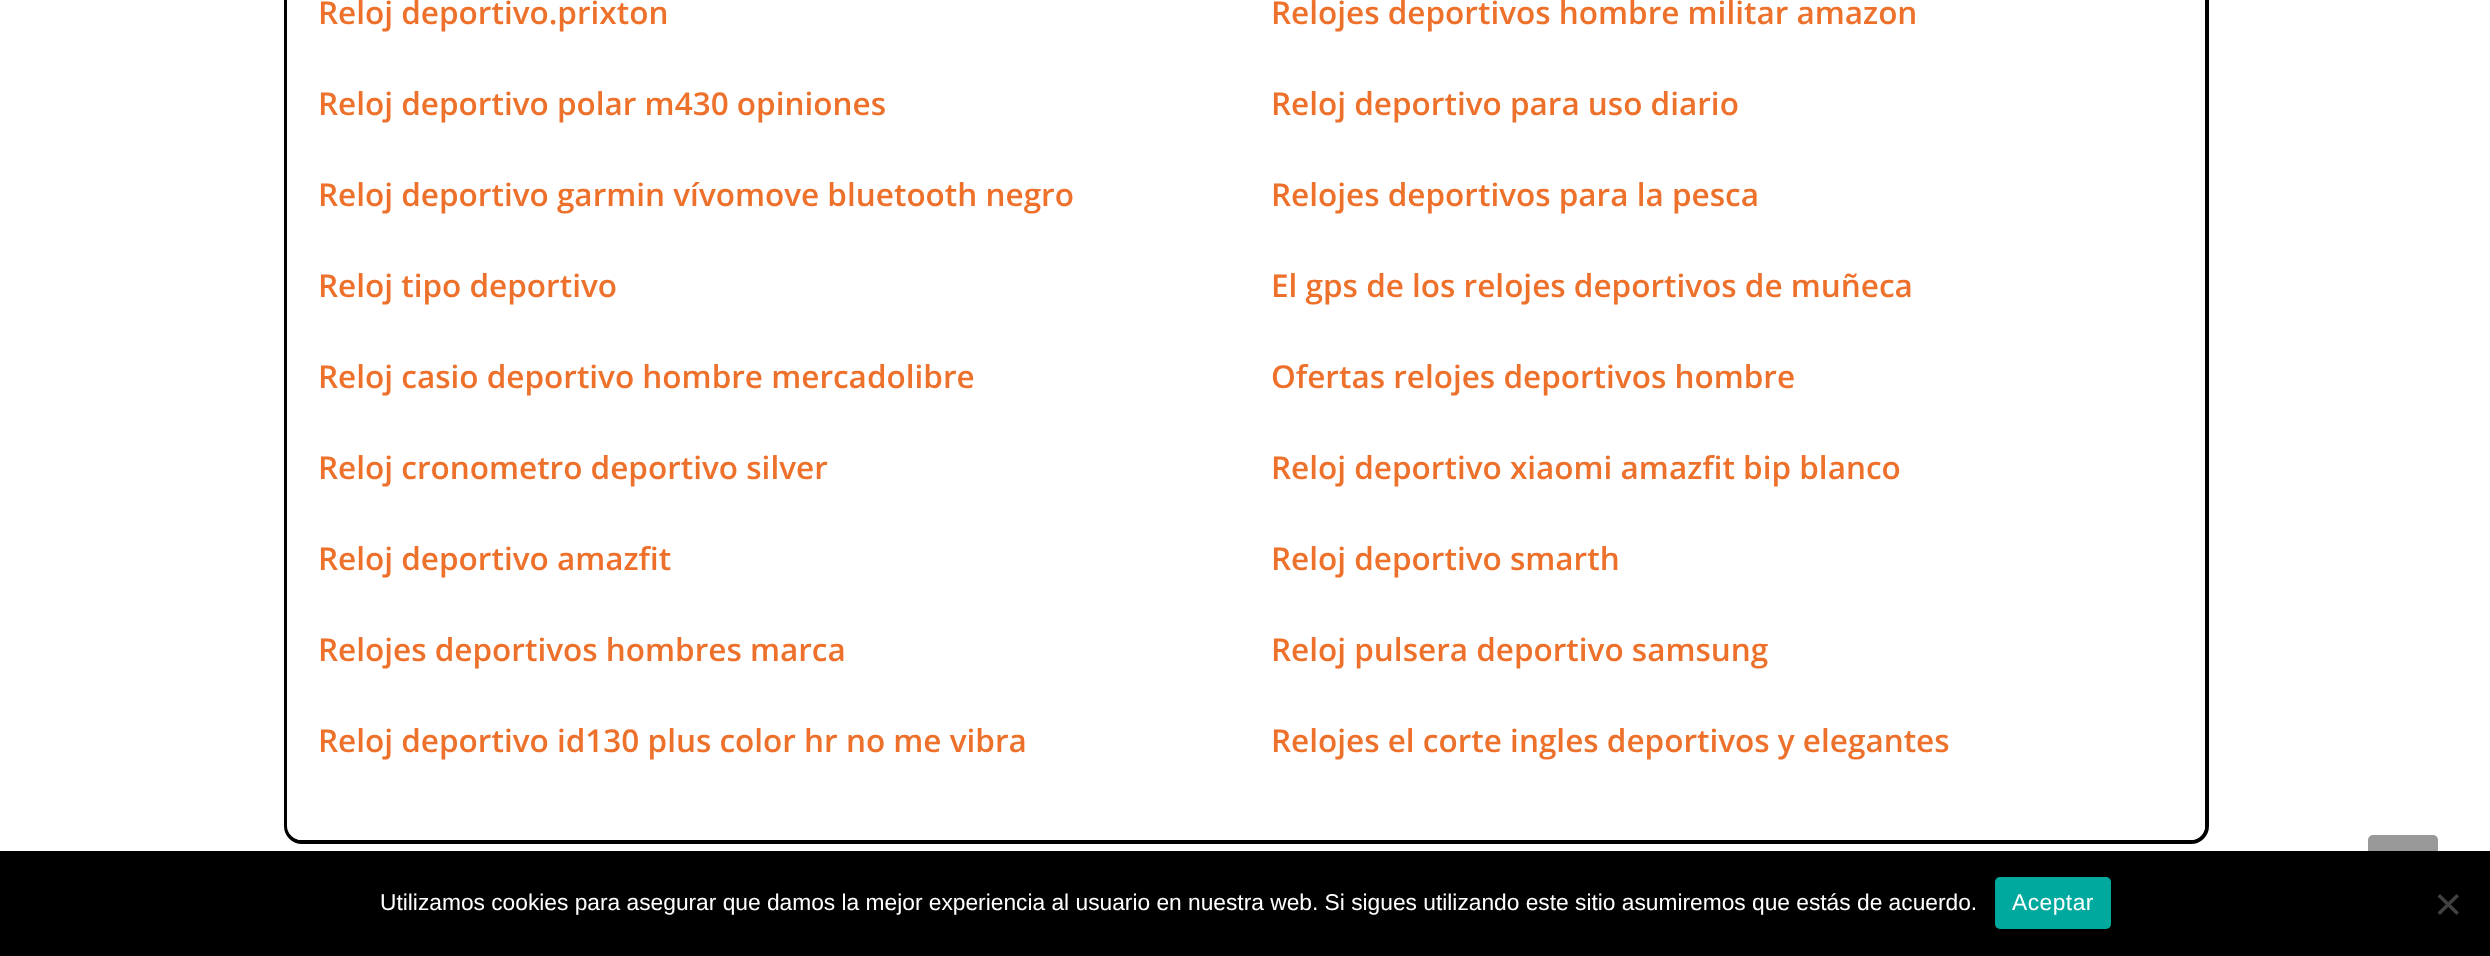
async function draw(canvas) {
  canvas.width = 2490;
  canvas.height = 956;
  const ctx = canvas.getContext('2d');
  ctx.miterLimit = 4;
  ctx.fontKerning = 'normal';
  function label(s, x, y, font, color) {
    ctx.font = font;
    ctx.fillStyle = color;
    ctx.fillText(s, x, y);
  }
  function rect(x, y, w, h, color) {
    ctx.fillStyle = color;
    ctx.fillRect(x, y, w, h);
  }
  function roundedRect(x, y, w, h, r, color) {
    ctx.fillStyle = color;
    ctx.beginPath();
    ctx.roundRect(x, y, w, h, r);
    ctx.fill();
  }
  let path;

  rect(0, 0, 2490, 956, '#fff');
  ctx.beginPath();
  ctx.roundRect(286, -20, 1921, 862, 16);
  ctx.strokeStyle = '#000';
  ctx.lineWidth = 4;
  ctx.stroke();
  path = new Path2D('M287-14H2205V826C2205 833.5 2198.5 840 2191 840H301C293.5 840 287 833.5 287 826Z');
  ctx.fill(path);
  label('Reloj deportivo.prixton', 318, 24, '600 31.5px Open Sans', '#ed702b');
  label('Relojes deportivos hombre militar amazon', 1271, 24, '600 31.5px Open Sans', '#ed702b');
  label('Reloj deportivo polar m430 opiniones', 318, 115, '600 31.5px Open Sans', '#ed702b');
  label('Reloj deportivo para uso diario', 1271, 115, '600 31.5px Open Sans', '#ed702b');
  label('Reloj deportivo garmin vívomove bluetooth negro', 318, 206, '600 31.5px Open Sans', '#ed702b');
  label('Relojes deportivos para la pesca', 1271, 206, '600 31.5px Open Sans', '#ed702b');
  label('Reloj tipo deportivo', 318, 297, '600 31.5px Open Sans', '#ed702b');
  label('El gps de los relojes deportivos de muñeca', 1271, 297, '600 31.5px Open Sans', '#ed702b');
  label('Reloj casio deportivo hombre mercadolibre', 318, 388, '600 31.5px Open Sans', '#ed702b');
  label('Ofertas relojes deportivos hombre', 1271, 388, '600 31.5px Open Sans', '#ed702b');
  label('Reloj cronometro deportivo silver', 318, 479, '600 31.5px Open Sans', '#ed702b');
  label('Reloj deportivo xiaomi amazfit bip blanco', 1271, 479, '600 31.5px Open Sans', '#ed702b');
  label('Reloj deportivo amazfit', 318, 570, '600 31.5px Open Sans', '#ed702b');
  label('Reloj deportivo smarth', 1271, 570, '600 31.5px Open Sans', '#ed702b');
  label('Relojes deportivos hombres marca', 318, 661, '600 31.5px Open Sans', '#ed702b');
  label('Reloj pulsera deportivo samsung', 1271, 661, '600 31.5px Open Sans', '#ed702b');
  label('Reloj deportivo id130 plus color hr no me vibra', 318, 752, '600 31.5px Open Sans', '#ed702b');
  label('Relojes el corte ingles deportivos y elegantes', 1271, 752, '600 31.5px Open Sans', '#ed702b');
  roundedRect(2368, 835, 70, 70, 5, '#999');
  rect(0, 851, 2490, 105, '#000');
  label('Utilizamos cookies para asegurar que damos la mejor experiencia al usuario en nuestra web. Si sigues utilizando este sitio asumiremos que estás de acuerdo.', 380, 910, '22.75px Liberation Sans', '#fff');
  roundedRect(1995, 877, 116, 52, 5, '#00a99d');
  ctx.letterSpacing = '0.5px';
  label('Aceptar', 2012, 910, '22.75px Liberation Sans', '#fff');
  ctx.fillStyle = '#404040';
  path = new Path2D('M2456.5 894L2459 896.5L2440 915L2437.5 912.5Z');
  ctx.fill(path);
  path = new Path2D('M2437.5 896.5L2440 894L2459 912.5L2456.5 915Z');
  ctx.fill(path);
}

draw(document.querySelector('canvas'));
